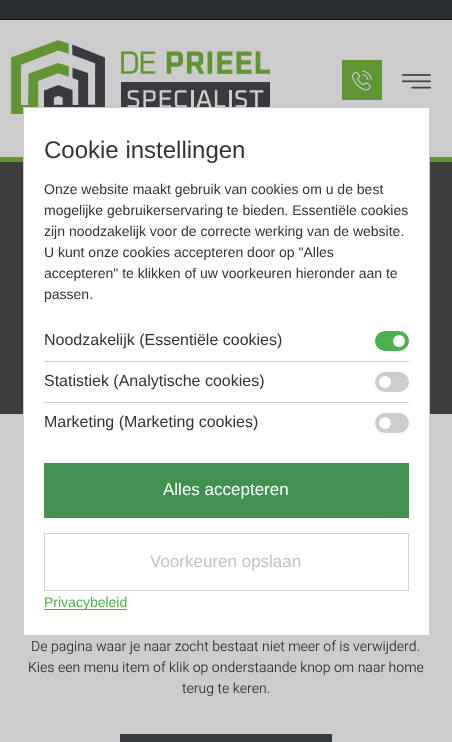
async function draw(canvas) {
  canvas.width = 452;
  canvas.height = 742;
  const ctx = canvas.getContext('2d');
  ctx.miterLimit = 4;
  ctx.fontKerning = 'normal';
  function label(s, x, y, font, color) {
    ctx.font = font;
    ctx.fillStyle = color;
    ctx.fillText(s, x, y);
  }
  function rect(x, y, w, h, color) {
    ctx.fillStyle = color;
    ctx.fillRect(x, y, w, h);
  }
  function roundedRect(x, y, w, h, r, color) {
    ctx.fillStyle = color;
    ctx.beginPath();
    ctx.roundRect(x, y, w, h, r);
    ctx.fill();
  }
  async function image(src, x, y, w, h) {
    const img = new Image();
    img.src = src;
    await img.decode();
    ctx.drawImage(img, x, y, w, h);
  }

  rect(0, 0, 452, 742, '#fff');
  rect(0, 162, 452, 252, '#4d4d4d');
  rect(0, 0, 452, 19, '#383b3f');
  rect(0, 19, 452, 1, '#111213');
  rect(0, 157, 452, 5, '#7bba42');
  await image('assets/img1.png', 11, 40, 259, 74);
  rect(342, 60, 40, 40, '#7bba42');
  await image('assets/img2.png', 352, 70, 20, 21);
  await image('assets/img3.png', 402, 74, 29, 15);
  label('De pagina waar je naar zocht bestaat niet meer of is verwijderd.', 31, 651, '300 14px Heebo', '#333');
  label('Kies een menu item of klik op onderstaande knop om naar home', 28, 672, '300 14px Heebo', '#333');
  label('terug te keren.', 182, 693, '300 14px Heebo', '#333');
  rect(120, 734, 212, 8, '#45494e');
  ctx.strokeStyle = '#00000033';
  ctx.lineWidth = 452;
  ctx.strokeRect(-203, -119, 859, 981);
  rect(24, 108, 405, 306, '#fff');
  ctx.strokeStyle = '#ccc';
  ctx.lineWidth = 1;
  ctx.strokeRect(23.5, 107.5, 406, 528);
  label('Cookie instellingen', 44, 158, '24px Liberation Sans', '#333');
  label('Onze website maakt gebruik van cookies om u de best', 44, 194, '14px Liberation Sans', '#333');
  label('mogelijke gebruikerservaring te bieden. Essentiële cookies', 44, 215, '14px Liberation Sans', '#333');
  label('zijn noodzakelijk voor de correcte werking van de website.', 44, 236, '14px Liberation Sans', '#333');
  label('U kunt onze cookies accepteren door op "Alles', 44, 257, '14px Liberation Sans', '#333');
  label('accepteren" te klikken of uw voorkeuren hieronder aan te', 44, 278, '14px Liberation Sans', '#333');
  label('passen.', 44, 299, '14px Liberation Sans', '#333');
  rect(44, 361, 365, 1, '#ccc');
  label('Noodzakelijk (Essentiële cookies)', 44, 345, '16px Liberation Sans', '#333');
  roundedRect(375, 331, 34, 20, 10, '#4caf50');
  ctx.fillStyle = '#fff';
  ctx.beginPath();
  ctx.arc(399, 341, 6, 0, 2 * Math.PI);
  ctx.fill();
  rect(44, 402, 365, 1, '#ccc');
  label('Statistiek (Analytische cookies)', 44, 386, '16px Liberation Sans', '#333');
  roundedRect(375, 372, 34, 20, 10, '#ccc');
  ctx.fillStyle = '#fff';
  ctx.beginPath();
  ctx.arc(385, 382, 6, 0, 2 * Math.PI);
  ctx.fill();
  label('Marketing (Marketing cookies)', 44, 427, '16px Liberation Sans', '#333');
  roundedRect(375, 413, 34, 20, 10, '#ccc');
  ctx.fillStyle = '#fff';
  ctx.beginPath();
  ctx.arc(385, 423, 6, 0, 2 * Math.PI);
  ctx.fill();
  rect(44, 463, 365, 55, '#429152');
  label('Alles accepteren', 163, 495, '17px Liberation Sans', '#fff');
  ctx.strokeStyle = '#d4d4d4';
  ctx.strokeRect(44.5, 533.5, 364, 57);
  label('Voorkeuren opslaan', 150, 567, '17px Liberation Sans', '#c2c2c2');
  rect(44, 609, 83, 1, '#4caf50');
  label('Privacybeleid', 44, 607, '14px Liberation Sans', '#4caf50');
}

draw(document.querySelector('canvas'));
